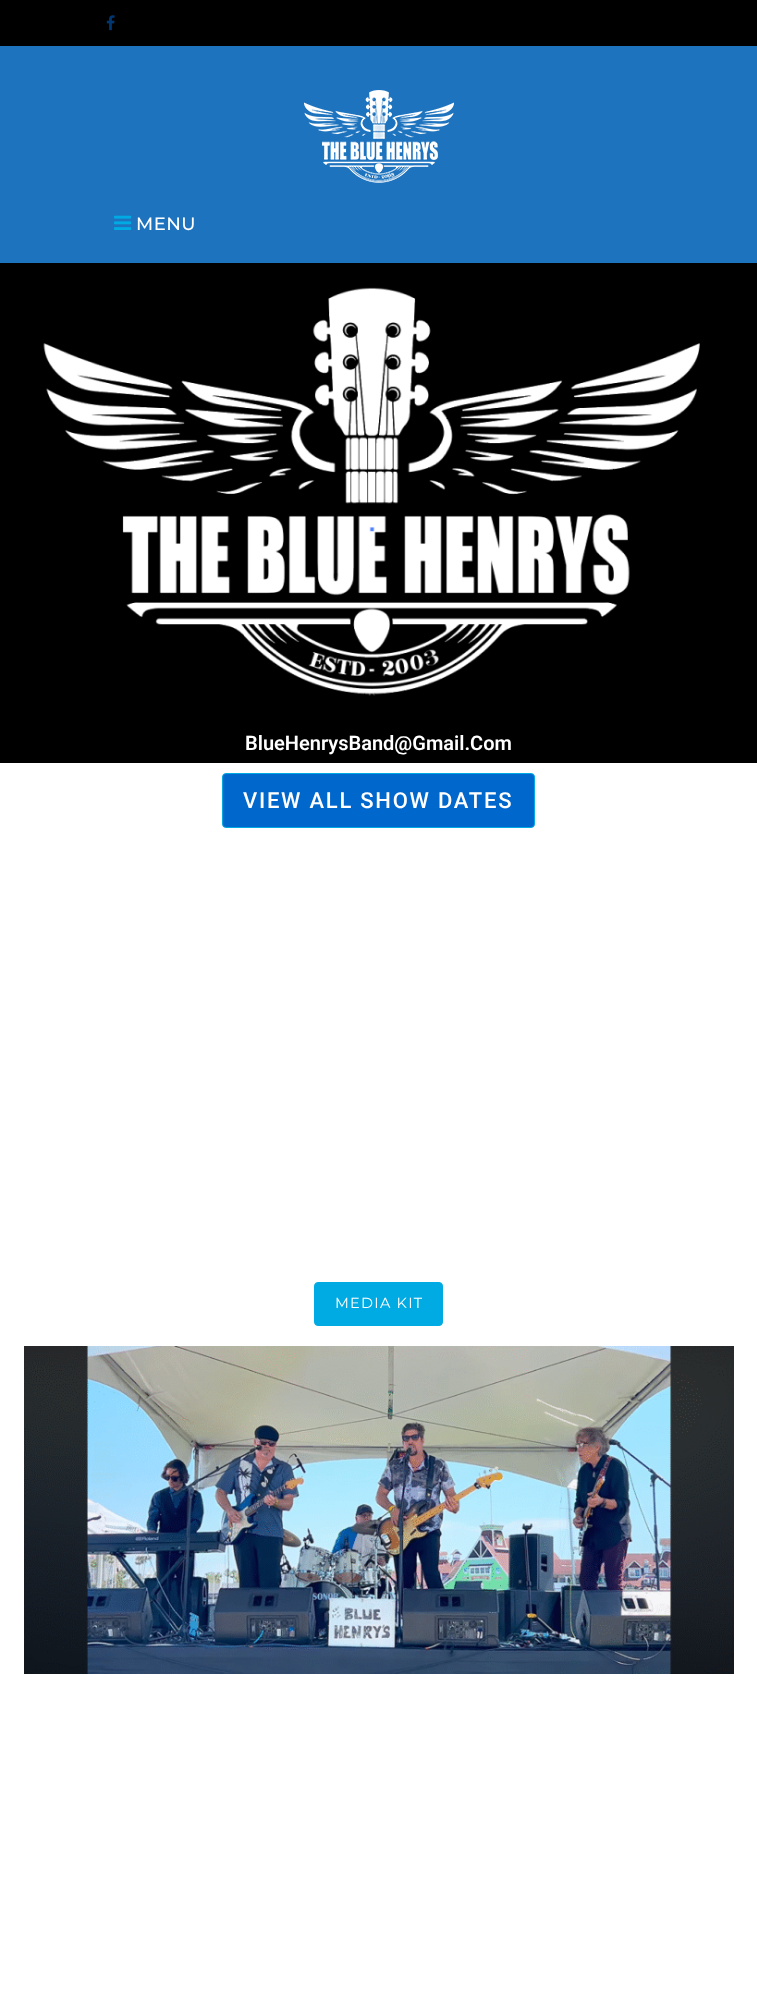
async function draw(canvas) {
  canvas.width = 757;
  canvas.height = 1993;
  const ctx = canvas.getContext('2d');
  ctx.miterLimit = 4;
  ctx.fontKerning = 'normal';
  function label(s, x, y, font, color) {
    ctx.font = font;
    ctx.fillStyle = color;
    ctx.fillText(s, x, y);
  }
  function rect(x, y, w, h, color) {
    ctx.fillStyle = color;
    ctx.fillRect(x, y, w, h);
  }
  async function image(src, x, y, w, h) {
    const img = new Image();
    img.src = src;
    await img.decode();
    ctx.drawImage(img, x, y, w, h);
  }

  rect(0, 0, 757, 1993, '#fff');
  rect(0, 46, 757, 217, '#1e73be');
  rect(0, 0, 757, 46, '#000');
  await image('assets/img1.png', 106, 15, 9, 16);
  await image('assets/img2.png', 304, 90, 150, 93);
  await image('assets/img3.png', 114, 215, 18, 15);
  ctx.letterSpacing = '0.5px';
  label('MENU', 136, 230, '500 18px Montserrat', '#fff');
  rect(0, 263, 757, 500, '#000');
  await image('assets/img4.png', 43, 287, 657, 409);
  ctx.letterSpacing = '0px';
  label('BlueHenrysBand@Gmail.Com', 245, 750, '600 20px Roboto', '#fff');
  ctx.fillStyle = '#0067cc';
  ctx.beginPath();
  ctx.roundRect(222.5, 773.5, 312, 54, 3.5);
  ctx.fill();
  ctx.strokeStyle = '#00abe4';
  ctx.stroke();
  ctx.letterSpacing = '1.75px';
  label('VIEW ALL SHOW DATES', 243, 808, '500 22px Roboto', '#fff');
  ctx.fillStyle = '#00abe4';
  ctx.beginPath();
  ctx.roundRect(314.5, 1282.5, 128, 43, 3.5);
  ctx.fill();
  ctx.stroke();
  ctx.letterSpacing = '1.25px';
  label('MEDIA KIT', 335, 1308, '14.5px Montserrat', '#fff');
  await image('assets/img5.png', 24, 1346, 710, 328);
}

draw(document.querySelector('canvas'));
